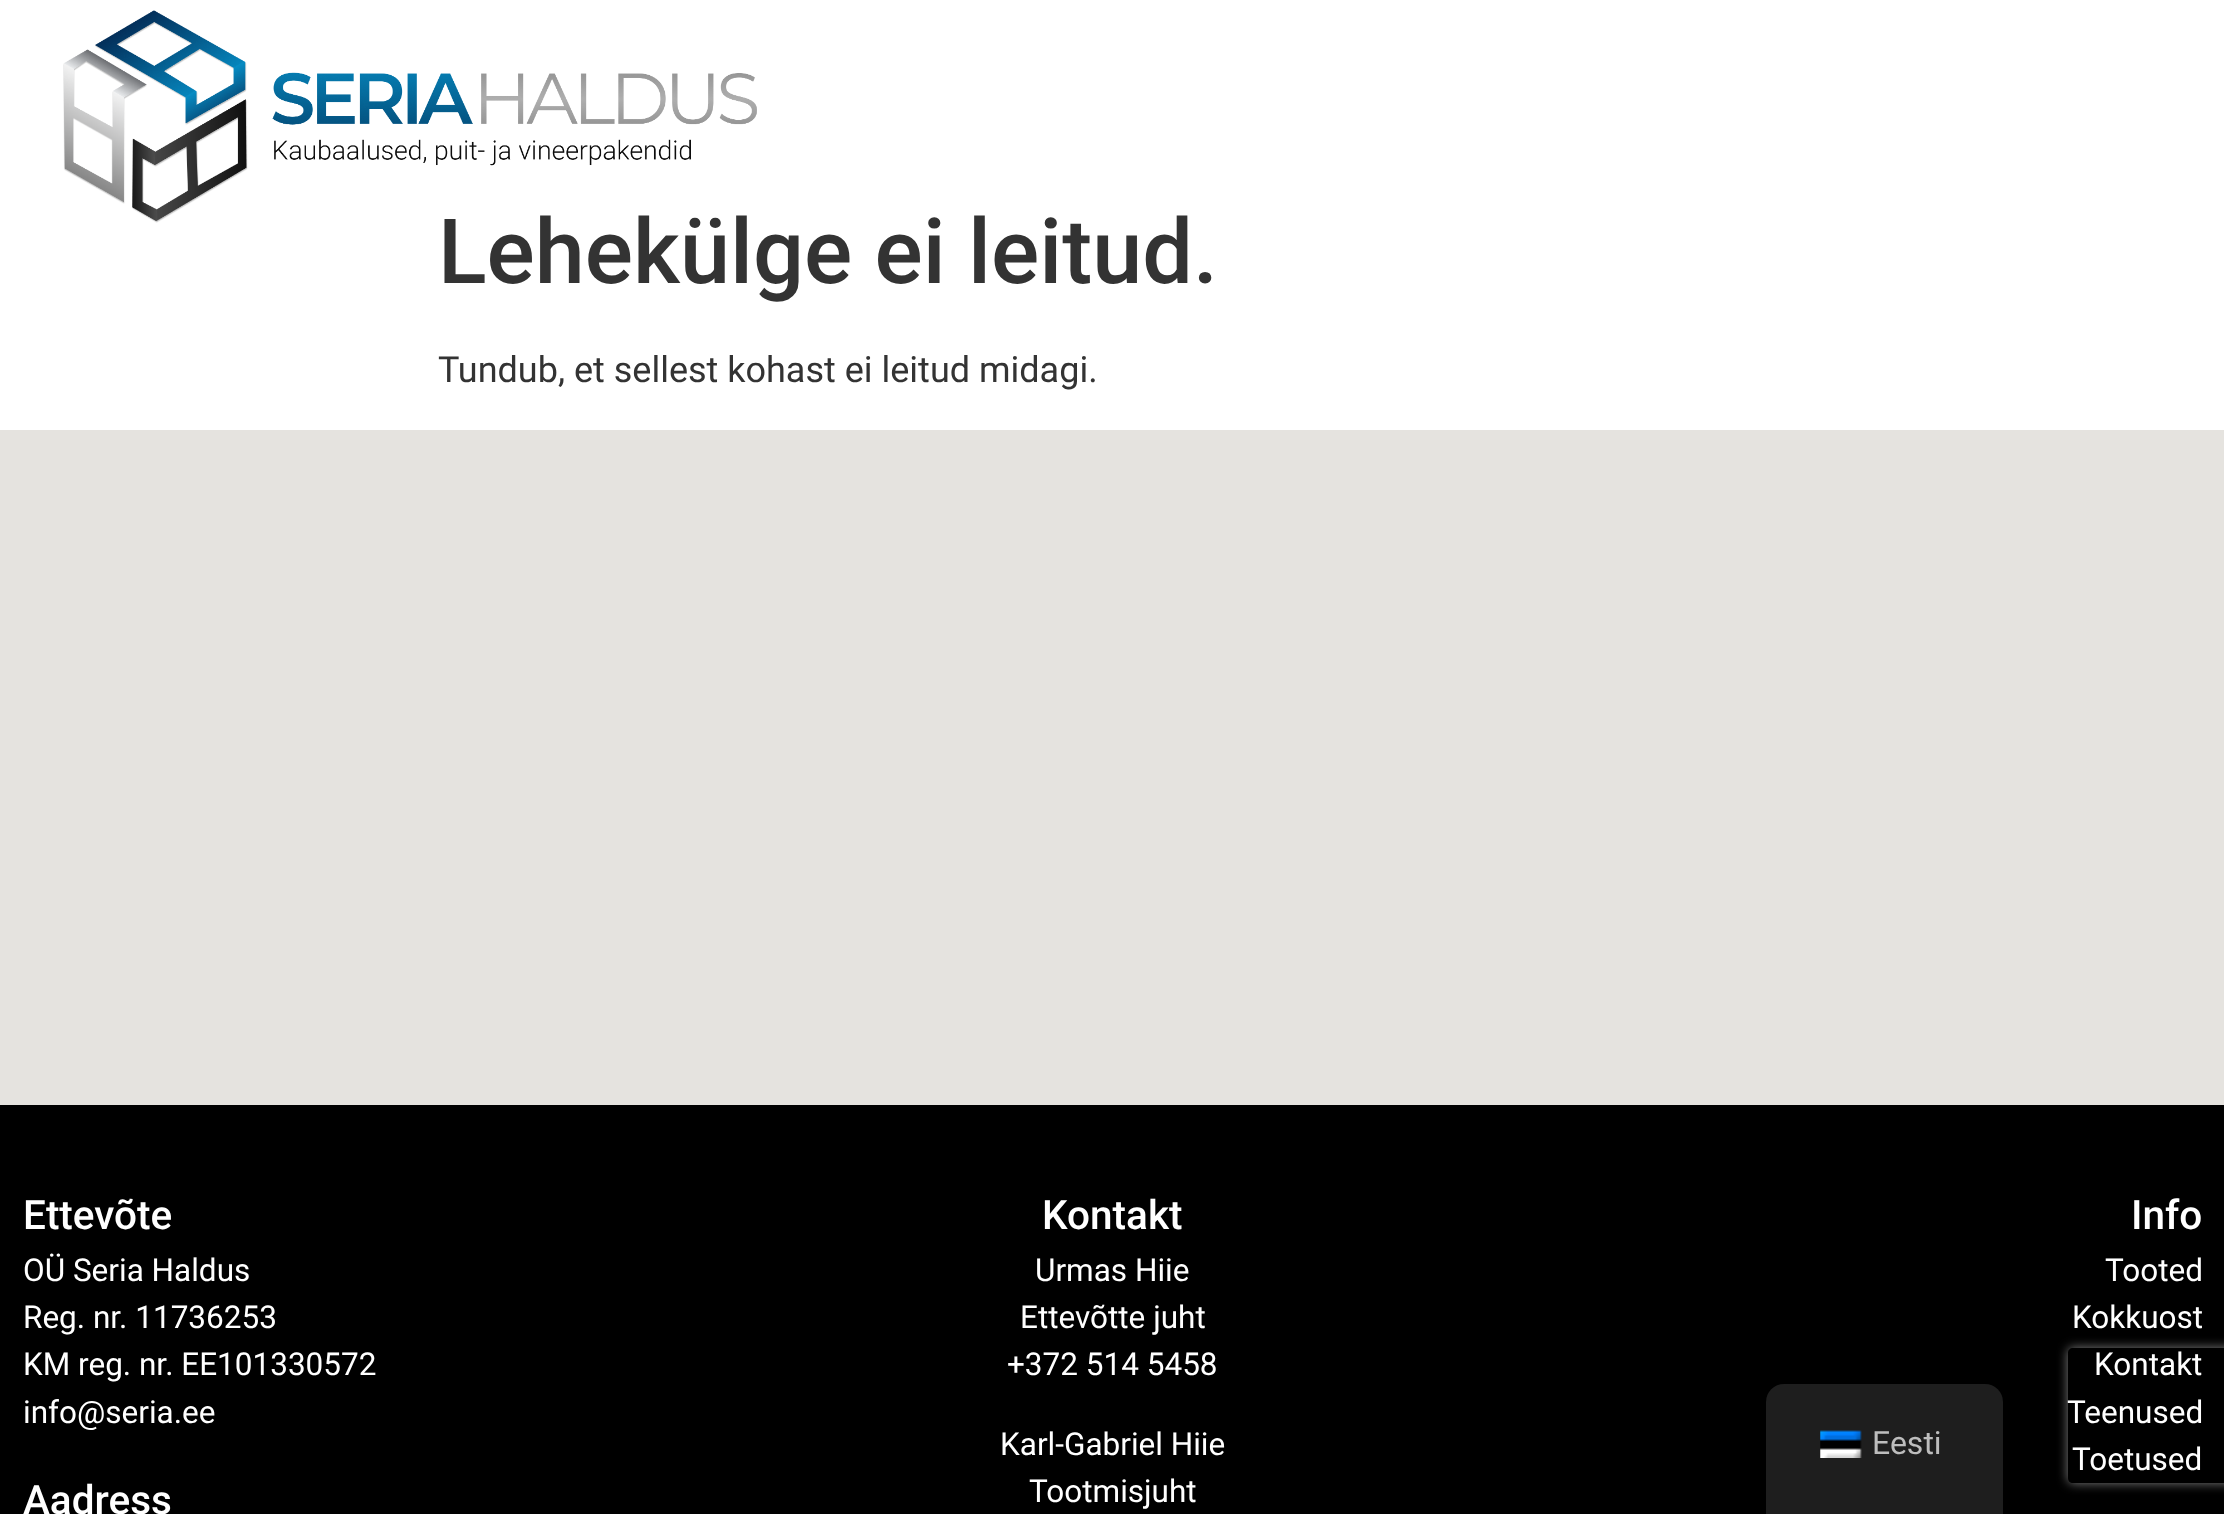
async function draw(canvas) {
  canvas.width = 2224;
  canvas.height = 1514;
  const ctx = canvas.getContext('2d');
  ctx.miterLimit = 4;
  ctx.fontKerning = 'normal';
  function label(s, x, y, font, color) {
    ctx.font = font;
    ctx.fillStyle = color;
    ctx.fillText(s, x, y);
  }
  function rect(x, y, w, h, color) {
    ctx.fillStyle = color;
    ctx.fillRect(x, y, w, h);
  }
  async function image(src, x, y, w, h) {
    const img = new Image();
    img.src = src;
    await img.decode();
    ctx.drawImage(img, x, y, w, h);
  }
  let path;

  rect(0, 0, 2224, 1514, '#fff');
  label('Lehekülge ei leitud.', 438, 283, '500 90px Roboto', '#333');
  await image('assets/img1.png', 63, 10, 694, 213);
  label('Tundub, et sellest kohast ei leitud midagi.', 438, 382, '36px Roboto', '#333');
  rect(0, 430, 2224, 675, '#e5e3df');
  rect(0, 1105, 2224, 409, '#000');
  label('Ettevõte', 23, 1229, '500 40.5px Roboto', '#fff');
  label('OÜ Seria Haldus', 23, 1281, '31.5px Roboto', '#fff');
  label('Reg. nr. 11736253', 23, 1328, '31.5px Roboto', '#fff');
  label('KM reg. nr. EE101330572', 23, 1375, '31.5px Roboto', '#fff');
  label('info@seria.ee', 23, 1423, '31.5px Roboto', '#fff');
  label('Aadress', 23, 1514, '500 40.5px Roboto', '#fff');
  label('Kontakt', 1042, 1229, '500 40.5px Roboto', '#fff');
  label('Urmas Hiie', 1035, 1281, '31.5px Roboto', '#fff');
  label('Ettevõtte juht', 1020, 1328, '31.5px Roboto', '#fff');
  label('+372 514 5458', 1007, 1375, '31.5px Roboto', '#fff');
  label('Karl-Gabriel Hiie', 1000, 1455, '31.5px Roboto', '#fff');
  label('Tootmisjuht', 1029, 1502, '31.5px Roboto', '#fff');
  label('Info', 2131, 1229, '500 40.5px Roboto', '#fff');
  label('Tooted', 2105, 1281, '31.5px Roboto', '#fff');
  label('Kokkuost', 2072, 1328, '31.5px Roboto', '#fff');
  label('Kontakt', 2094, 1375, '31.5px Roboto', '#fff');
  label('Teenused', 2067, 1423, '31.5px Roboto', '#fff');
  label('Toetused', 2072, 1470, '31.5px Roboto', '#fff');
  ctx.fillStyle = '#1e1e1e';
  ctx.beginPath();
  ctx.roundRect(1766, 1384, 237, 130, [18, 18, 0, 0]);
  ctx.fill();
  await image('assets/img2.png', 1820, 1430, 42, 28);
  label('Eesti', 1872, 1454, '32px Roboto', '#bdbdbd');
  ctx.save();
  path = new Path2D('M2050 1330H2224V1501H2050ZM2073 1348H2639C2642 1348 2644 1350 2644 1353V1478C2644 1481 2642 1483 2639 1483H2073C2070 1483 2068 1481 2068 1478V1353C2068 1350 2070 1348 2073 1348Z');
  ctx.clip(path, 'evenodd');
  ctx.fillStyle = '#808080';
  ctx.filter = 'blur(5.5px)';
  ctx.beginPath();
  ctx.roundRect(2068, 1348, 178, 135, 5);
  ctx.fill();
  ctx.filter = 'none';
  ctx.restore();
}

draw(document.querySelector('canvas'));
